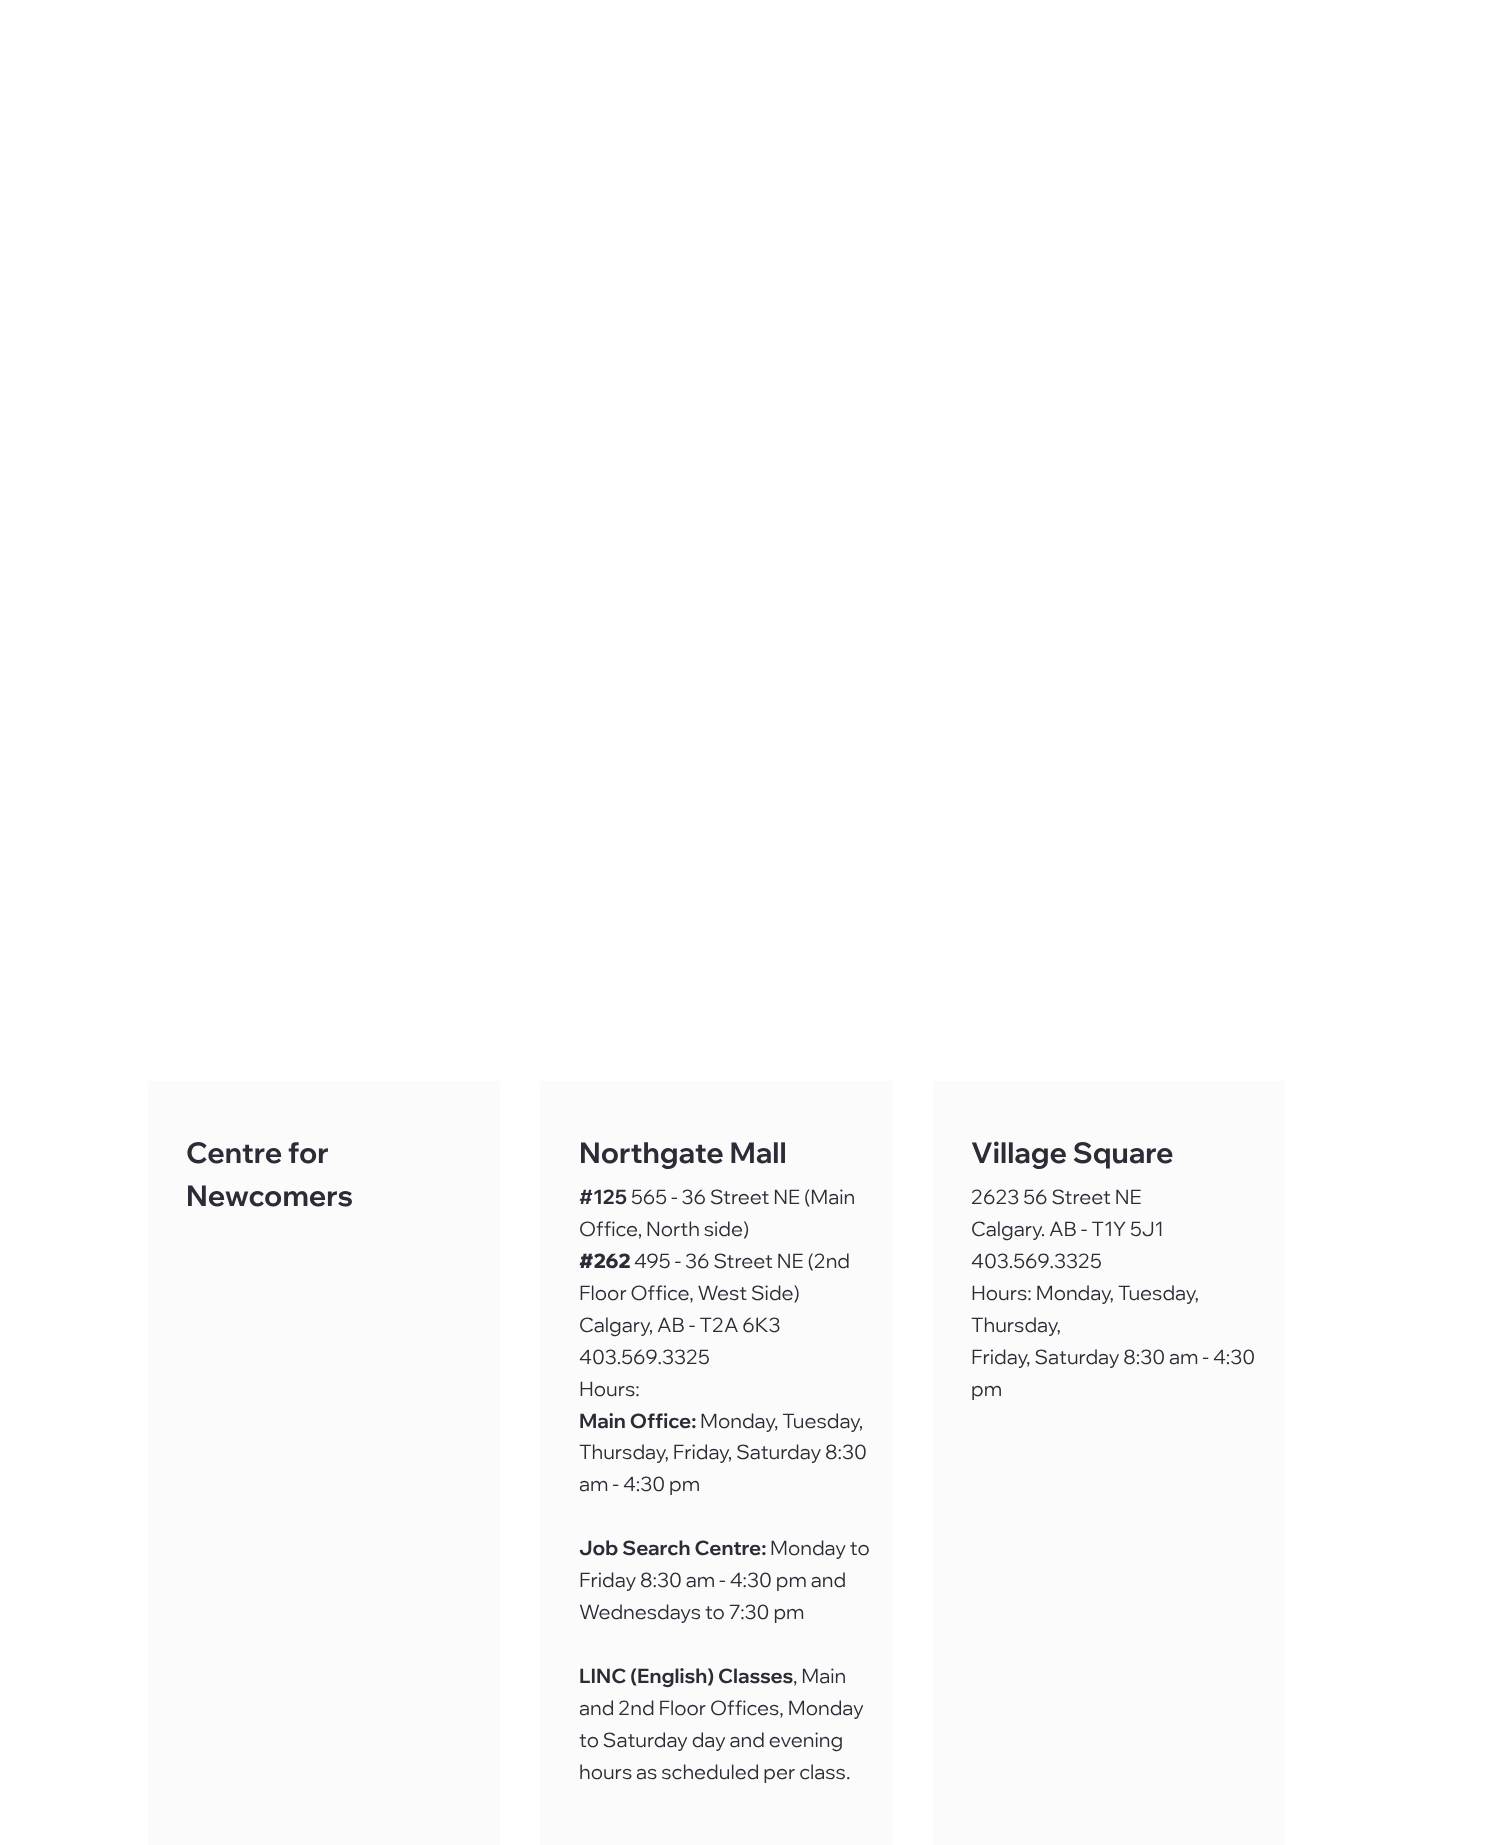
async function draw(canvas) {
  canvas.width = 1492;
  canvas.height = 1845;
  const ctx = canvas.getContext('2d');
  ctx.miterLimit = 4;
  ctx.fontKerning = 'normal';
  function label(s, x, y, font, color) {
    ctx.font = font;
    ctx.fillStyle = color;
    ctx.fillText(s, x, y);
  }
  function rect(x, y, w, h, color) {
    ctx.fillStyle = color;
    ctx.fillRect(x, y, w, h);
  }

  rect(0, 0, 1492, 1845, '#fff');
  rect(148, 1081, 352, 764, '#fbfbfb');
  label('Centre for', 186, 1163, 'bold 28.75px Wix Madefor Display', '#2f2b36');
  label('Newcomers', 186, 1206, 'bold 28.75px Wix Madefor Display', '#2f2b36');
  rect(540, 1081, 353, 764, '#fbfbfb');
  label('Northgate Mall', 579, 1163, 'bold 28.75px Wix Madefor Display', '#2f2b36');
  label('#125', 579, 1204, 'bold 20px Wix Madefor Display', '#2f2b36');
  label('565 - 36 Street NE (Main', 631, 1204, '20px Wix Madefor Display', '#2f2b36');
  label('Office, North side)', 579, 1236, '20px Wix Madefor Display', '#2f2b36');
  label('#262', 579, 1268, '800 20px Wix Madefor Display', '#2f2b36');
  label('495 - 36 Street NE (2nd', 634, 1268, '20px Wix Madefor Display', '#2f2b36');
  label('Floor Office, West Side)', 579, 1300, '20px Wix Madefor Display', '#2f2b36');
  label('Calgary, AB - T2A 6K3', 579, 1332, '20px Wix Madefor Display', '#2f2b36');
  label('403.569.3325', 579, 1364, '20px Wix Madefor Display', '#2f2b36');
  label('Hours:', 579, 1396, '20px Wix Madefor Display', '#2f2b36');
  label('Main Office:', 579, 1428, 'bold 20px Wix Madefor Display', '#2f2b36');
  label('Monday, Tuesday,', 700, 1428, '20px Wix Madefor Display', '#2f2b36');
  label('Thursday, Friday, Saturday 8:30', 579, 1459, '20px Wix Madefor Display', '#2f2b36');
  label('am - 4:30 pm', 579, 1491, '20px Wix Madefor Display', '#2f2b36');
  label('Job Search Centre:', 579, 1555, 'bold 20px Wix Madefor Display', '#2f2b36');
  label('Monday to', 770, 1555, '20px Wix Madefor Display', '#2f2b36');
  label('Friday 8:30 am - 4:30 pm and', 579, 1587, '20px Wix Madefor Display', '#2f2b36');
  label('Wednesdays to 7:30 pm', 579, 1619, '20px Wix Madefor Display', '#2f2b36');
  label('LINC (English) Classes', 579, 1683, 'bold 20px Wix Madefor Display', '#2f2b36');
  label(', Main', 793, 1683, '20px Wix Madefor Display', '#2f2b36');
  label('and 2nd Floor Offices, Monday', 579, 1715, '20px Wix Madefor Display', '#2f2b36');
  label('to Saturday day and evening', 579, 1747, '20px Wix Madefor Display', '#2f2b36');
  label('hours as scheduled per class.', 579, 1779, '20px Wix Madefor Display', '#2f2b36');
  rect(933, 1081, 352, 764, '#fbfbfb');
  label('Village Square', 971, 1163, 'bold 28.75px Wix Madefor Display', '#2f2b36');
  label('2623 56 Street NE', 971, 1204, '20px Wix Madefor Display', '#2f2b36');
  label('Calgary. AB - T1Y 5J1', 971, 1236, '20px Wix Madefor Display', '#2f2b36');
  label('403.569.3325', 971, 1268, '20px Wix Madefor Display', '#2f2b36');
  label('Hours: Monday, Tuesday,', 971, 1300, '20px Wix Madefor Display', '#2f2b36');
  label('Thursday,', 971, 1332, '20px Wix Madefor Display', '#2f2b36');
  label('Friday, Saturday 8:30 am - 4:30', 971, 1364, '20px Wix Madefor Display', '#2f2b36');
  label('pm', 971, 1396, '20px Wix Madefor Display', '#2f2b36');
}

draw(document.querySelector('canvas'));
